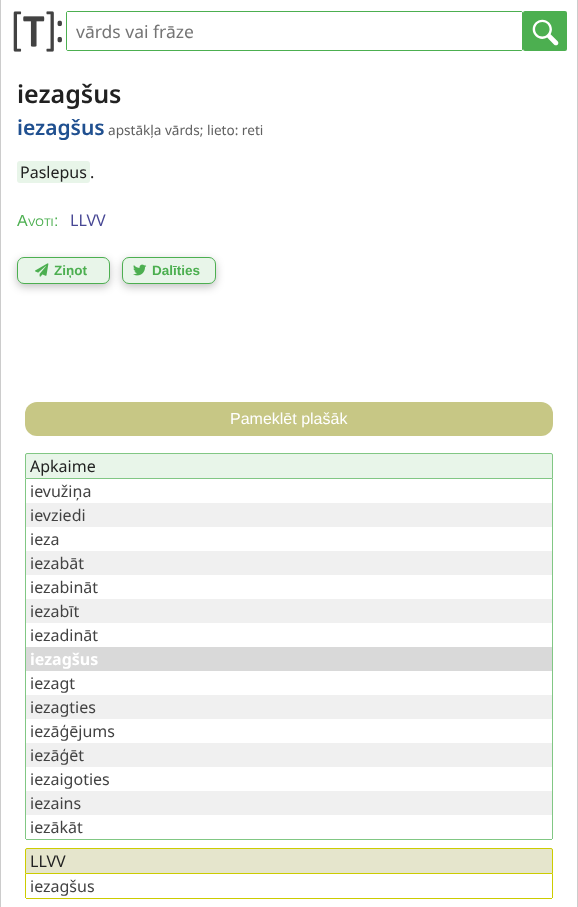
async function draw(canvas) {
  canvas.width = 578;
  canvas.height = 907;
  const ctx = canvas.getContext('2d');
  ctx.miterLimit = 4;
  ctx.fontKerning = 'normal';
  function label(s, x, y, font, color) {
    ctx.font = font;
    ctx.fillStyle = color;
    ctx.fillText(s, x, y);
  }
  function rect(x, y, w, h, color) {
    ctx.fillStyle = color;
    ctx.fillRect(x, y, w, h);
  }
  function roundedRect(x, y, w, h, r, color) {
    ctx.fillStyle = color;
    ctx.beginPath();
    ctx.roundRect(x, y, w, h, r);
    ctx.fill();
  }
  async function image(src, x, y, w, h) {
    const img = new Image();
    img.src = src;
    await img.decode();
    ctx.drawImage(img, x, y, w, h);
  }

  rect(0, 0, 578, 907, '#fff');
  rect(577, 0, 1, 907, '#ccc');
  rect(0, 0, 1, 907, '#ccc');
  await image('assets/img1.png', 13, 11, 49, 41);
  ctx.beginPath();
  ctx.roundRect(66.5, 11.5, 456, 39, 1.5);
  ctx.strokeStyle = '#4caf50';
  ctx.stroke();
  rect(67, 12, 455, 38, '#fff');
  label('vārds vai frāze', 76, 38, '17.5px Noto Sans', '#757575');
  roundedRect(523, 11, 44, 40, 2, '#4caf50');
  await image('assets/img2.png', 532, 19, 27, 27);
  label('iezagšus', 17, 103, '600 25px Noto Sans', '#212121');
  label('iezagšus', 17, 135, '600 21px Noto Sans', '#205090');
  label('apstākļa vārds; lieto: reti', 108, 135, '13.6px Noto Sans', '#616161');
  roundedRect(17, 161, 73, 22, 3, '#e8f5e9');
  label('Paslepus', 20, 178, '16px Noto Sans', '#212121');
  label('.', 90, 178, '16px Noto Sans', '#212121');
  label('A', 17, 226, '16px Liberation Sans', '#4caf50');
  label('VOTI', 28, 226, '11px Liberation Sans', '#4caf50');
  label(':', 54, 226, '16px Liberation Sans', '#4caf50');
  label('LLVV', 70, 226, '16px Noto Sans', '#474794');
  ctx.fillStyle = '#0000003d';
  ctx.filter = 'blur(4px)';
  ctx.beginPath();
  ctx.roundRect(17, 260, 93, 27, 7);
  ctx.fill();
  ctx.filter = 'none';
  ctx.fillStyle = '#e8f5e9';
  ctx.beginPath();
  ctx.roundRect(17.5, 257.5, 92, 26, 6.5);
  ctx.fill();
  ctx.stroke();
  await image('assets/img3.png', 35, 263, 14, 14);
  label('Ziņot', 54, 275, 'bold 13.5px Liberation Sans', '#4caf50');
  ctx.fillStyle = '#0000003d';
  ctx.filter = 'blur(4px)';
  ctx.beginPath();
  ctx.roundRect(122, 260, 94, 27, 7);
  ctx.fill();
  ctx.filter = 'none';
  ctx.fillStyle = '#e8f5e9';
  ctx.beginPath();
  ctx.roundRect(122.5, 257.5, 93, 26, 6.5);
  ctx.fill();
  ctx.stroke();
  await image('assets/img4.png', 133, 264, 14, 12);
  label('Dalīties', 152, 275, 'bold 13.5px Liberation Sans', '#4caf50');
  roundedRect(25, 402, 528, 34, 12, '#c7c785');
  label('Pameklēt plašāk', 230, 424, '16px Liberation Sans', '#fff');
  ctx.fillStyle = '#e8f5e9';
  ctx.beginPath();
  ctx.roundRect(25.5, 453.5, 527, 25, [1.5, 1.5, 0, 0]);
  ctx.fill();
  ctx.strokeStyle = '#81c784';
  ctx.stroke();
  label('Apkaime', 30, 472, '16px Noto Sans', '#212121');
  rect(552, 479, 1, 360, '#81c784');
  rect(26, 839, 526, 1, '#81c784');
  rect(25, 479, 1, 360, '#81c784');
  label('ievužiņa', 30, 497, '16px Noto Sans', '#424242');
  rect(26, 503, 526, 24, '#f0f0f0');
  label('ievziedi', 30, 521, '16px Noto Sans', '#424242');
  label('ieza', 30, 545, '16px Noto Sans', '#424242');
  rect(26, 551, 526, 24, '#f0f0f0');
  label('iezabāt', 30, 569, '16px Noto Sans', '#424242');
  label('iezabināt', 30, 593, '16px Noto Sans', '#424242');
  rect(26, 599, 526, 24, '#f0f0f0');
  label('iezabīt', 30, 617, '16px Noto Sans', '#424242');
  label('iezadināt', 30, 641, '16px Noto Sans', '#424242');
  rect(26, 647, 526, 24, '#d9d9d9');
  label('iezagšus', 30, 665, 'bold 16px Noto Sans', '#fff');
  label('iezagt', 30, 689, '16px Noto Sans', '#424242');
  rect(26, 695, 526, 24, '#f0f0f0');
  label('iezagties', 30, 713, '16px Noto Sans', '#424242');
  label('iezāģējums', 30, 737, '16px Noto Sans', '#424242');
  rect(26, 743, 526, 24, '#f0f0f0');
  label('iezāģēt', 30, 761, '16px Noto Sans', '#424242');
  label('iezaigoties', 30, 785, '16px Noto Sans', '#424242');
  rect(26, 791, 526, 24, '#f0f0f0');
  label('iezains', 30, 809, '16px Noto Sans', '#424242');
  label('iezākāt', 30, 833, '16px Noto Sans', '#424242');
  ctx.fillStyle = '#e5e5cc';
  ctx.beginPath();
  ctx.roundRect(25.5, 848.5, 527, 25, [1.5, 1.5, 0, 0]);
  ctx.fill();
  ctx.strokeStyle = '#cc0';
  ctx.stroke();
  label('LLVV', 30, 867, '16px Noto Sans', '#212121');
  rect(552, 874, 1, 24, '#cc0');
  rect(26, 898, 526, 1, '#cc0');
  rect(25, 874, 1, 24, '#cc0');
  label('iezagšus', 30, 892, '16px Noto Sans', '#424242');
}

draw(document.querySelector('canvas'));
